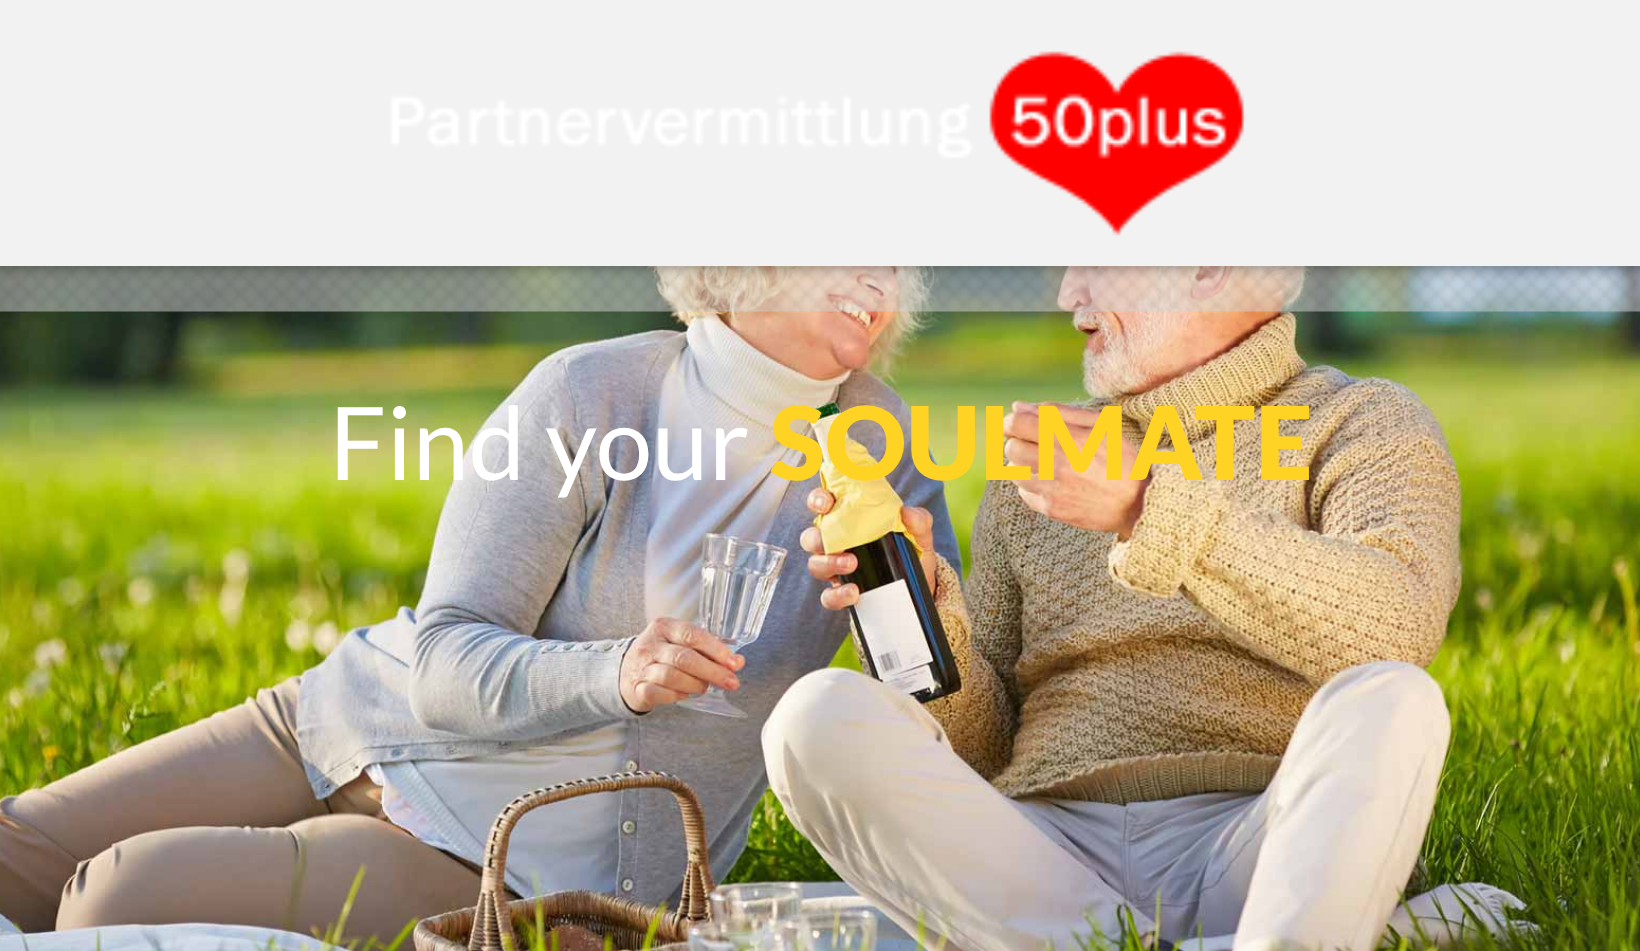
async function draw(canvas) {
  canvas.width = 1640;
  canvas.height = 951;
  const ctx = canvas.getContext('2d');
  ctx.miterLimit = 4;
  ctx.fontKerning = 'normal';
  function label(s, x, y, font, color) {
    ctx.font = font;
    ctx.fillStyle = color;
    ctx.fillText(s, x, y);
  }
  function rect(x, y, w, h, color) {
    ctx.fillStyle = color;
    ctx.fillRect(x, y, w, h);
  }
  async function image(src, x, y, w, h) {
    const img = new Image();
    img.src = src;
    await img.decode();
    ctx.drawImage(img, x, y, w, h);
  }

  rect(0, 0, 1640, 951, '#fff');
  await image('assets/img1.png', 0, 266, 1640, 685);
  rect(0, 0, 1640, 266, '#f2f2f2');
  await image('assets/img2.png', 390, 51, 857, 185);
  await image('assets/img3.png', 0, 266, 1640, 46);
  label('Find your', 329, 480, '101.5px Lato', '#fff');
  label('SOULMATE', 770, 480, '900 101.5px Lato', '#ffd324');
}

draw(document.querySelector('canvas'));
